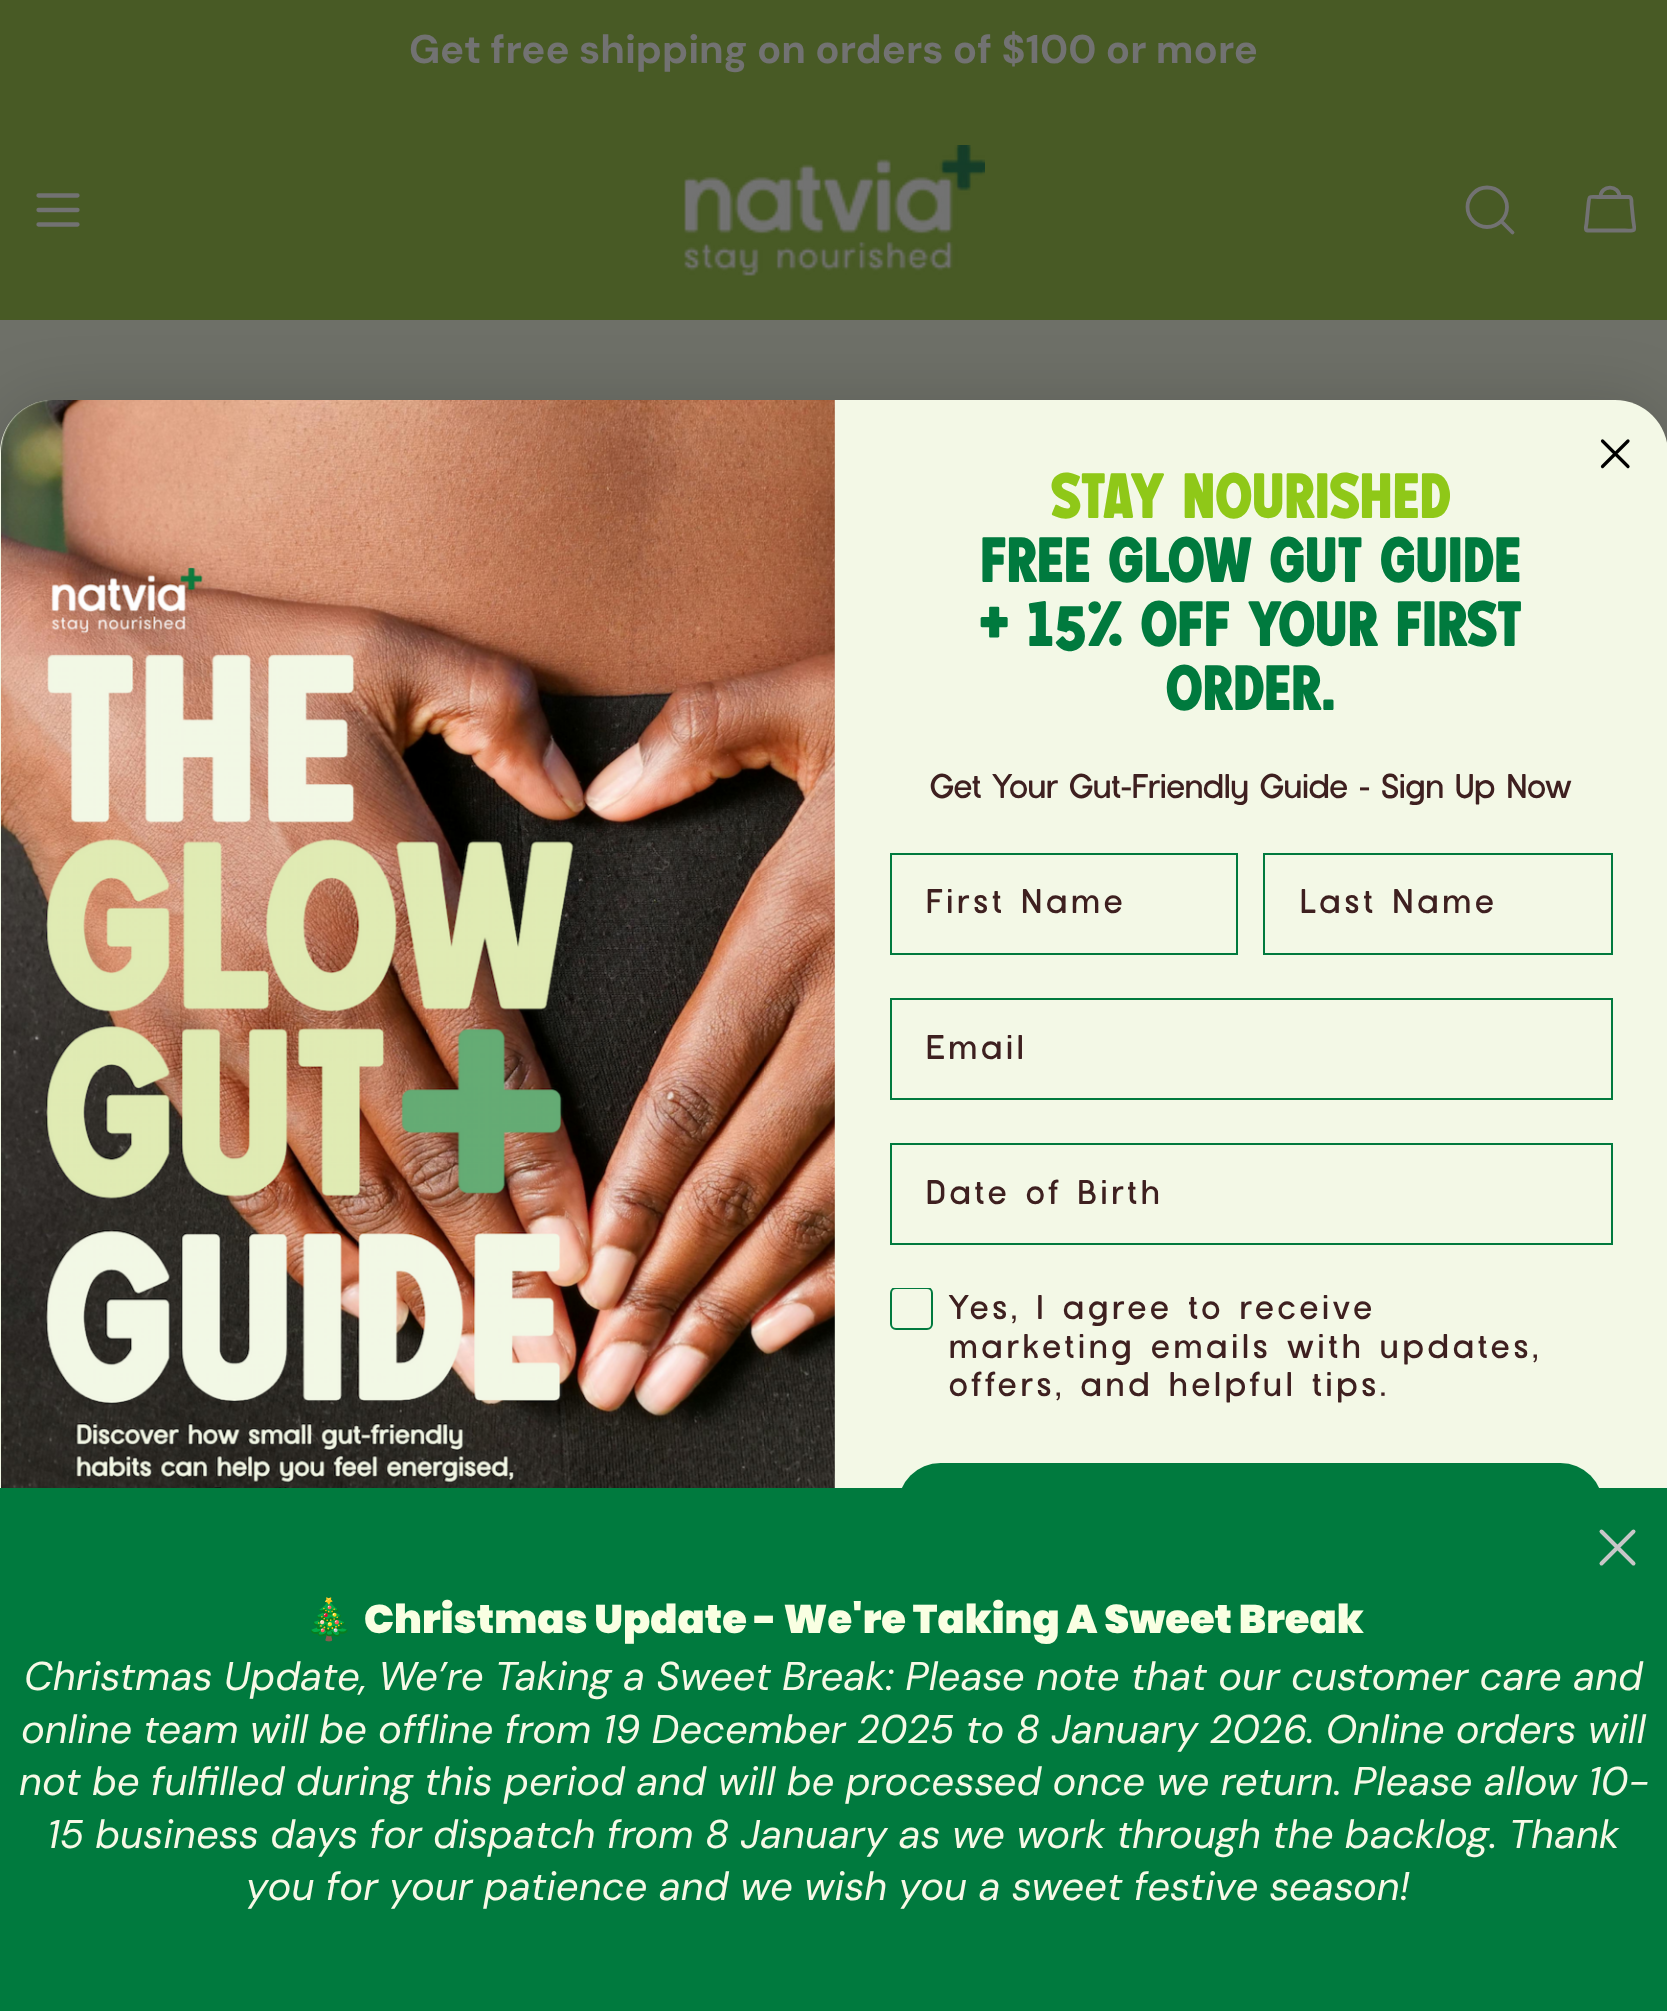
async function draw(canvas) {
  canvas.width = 1667;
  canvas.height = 2011;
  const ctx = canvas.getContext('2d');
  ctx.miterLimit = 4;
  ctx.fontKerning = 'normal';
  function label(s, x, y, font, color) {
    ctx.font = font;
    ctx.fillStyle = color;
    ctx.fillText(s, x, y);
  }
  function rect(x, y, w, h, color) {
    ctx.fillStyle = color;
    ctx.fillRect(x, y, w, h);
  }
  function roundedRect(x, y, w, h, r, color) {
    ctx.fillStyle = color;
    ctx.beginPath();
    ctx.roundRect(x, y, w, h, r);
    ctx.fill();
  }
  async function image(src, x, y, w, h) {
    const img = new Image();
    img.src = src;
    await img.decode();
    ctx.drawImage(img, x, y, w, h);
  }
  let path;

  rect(0, 0, 1667, 2011, '#6e7068');
  rect(0, 0, 1667, 320, '#485a25');
  path = new Path2D('M38.5 210H77.5M38.5 195.5H77.5M38.5 224.5H77.5');
  ctx.strokeStyle = '#727272';
  ctx.lineWidth = 4.3;
  ctx.lineCap = 'round';
  ctx.lineJoin = 'round';
  ctx.stroke(path);
  await image('assets/img1.png', 684, 145, 301, 131);
  path = new Path2D('M1487 227C1498 227 1507 218 1507 207C1507 196.5 1498 187.5 1487 187.5C1476.5 187.5 1467.5 196.5 1467.5 207C1467.5 218 1476.5 227 1487 227ZM1501 221L1512.5 232.5');
  ctx.lineWidth = 3.8;
  ctx.stroke(path);
  path = new Path2D('M1629 197H1597.5C1588.5 197 1589.5 195.5 1588.5 203.5L1586.5 223.5C1586.5 224.5 1584.5 230.5 1587.5 230.5H1625C1637 230.5 1634.5 232 1633 218.5L1631.5 203.5C1631.5 202.5 1632 197 1629 197ZM1600.5 197C1600.5 184.5 1619.5 184.5 1619.5 197');
  ctx.stroke(path);
  label('Get free shipping on orders of $100 or more', 409, 63, 'bold 40px DM Sans', '#727272');
  ctx.fillStyle = '#00000026';
  ctx.filter = 'blur(32px)';
  ctx.beginPath();
  ctx.roundRect(0, 400, 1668, 1213, 53);
  ctx.fill();
  ctx.filter = 'none';
  roundedRect(0, 400, 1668, 1213, 53, '#f3f8e6');
  path = new Path2D('M1602.5 441L1628 466.5M1602.5 466.5L1628 441Z');
  ctx.strokeStyle = '#000';
  ctx.lineWidth = 3.2;
  ctx.stroke(path);
  await image('assets/img2.png', 1, 400, 834, 1088);
  label('Stay Nourished', 1051, 518, '64.1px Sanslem', '#8fc818');
  label('Free Glow Gut Guide', 980, 582, '64.1px Sanslem', '#007a3e');
  label('+ 15% OFF Your First', 979, 646, '64.1px Sanslem', '#007a3e');
  label('Order.', 1166, 710, '64.1px Sanslem', '#007a3e');
  label('Get Your Gut-Friendly Guide - Sign Up Now', 930, 798, '34.25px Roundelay', '#3e2020');
  ctx.strokeStyle = '#007a3e';
  ctx.lineWidth = 2;
  ctx.lineJoin = 'miter';
  ctx.strokeRect(891, 854, 346, 100);
  ctx.letterSpacing = '4.25px';
  label('First Name', 926, 913, '34.25px Roundelay', '#3e2020');
  ctx.strokeRect(1264, 854, 348, 100);
  label('Last Name', 1300, 913, '34.25px Roundelay', '#3e2020');
  ctx.strokeRect(891, 999, 721, 100);
  label('Email', 926, 1059, '34.25px Roundelay', '#3e2020');
  ctx.strokeRect(891, 1144, 721, 100);
  label('Date of Birth', 926, 1204, '34.25px Roundelay', '#3e2020');
  ctx.save();
  ctx.beginPath();
  ctx.rect(890, 1288, 43, 42);
  ctx.clip();
  ctx.beginPath();
  ctx.roundRect(891, 1288, 41, 41, 5);
  ctx.stroke();
  ctx.restore();
  label('Yes, I agree to receive', 949, 1319, '34.25px Roundelay', '#3e2020');
  label('marketing emails with updates,', 949, 1358, '34.25px Roundelay', '#3e2020');
  label('offers, and helpful tips.', 949, 1396, '34.25px Roundelay', '#3e2020');
  roundedRect(898, 1463, 705, 85, 42.5, '#007a3e');
  rect(0, 1488, 1667, 523, '#007a3e');
  path = new Path2D('M1601.5 1531.5L1633.5 1563.5M1601.5 1563.5L1633.5 1531.5Z');
  ctx.strokeStyle = '#c7c7c7';
  ctx.lineWidth = 4;
  ctx.lineJoin = 'round';
  ctx.stroke(path);
  ctx.letterSpacing = '0px';
  label('🎄', 304, 1633, '40px Noto Color Emoji', '#f9ffe2');
  label('Christmas Update - We\'re Taking A Sweet Break', 364, 1633, '900 40px Poppins', '#f9ffe2');
  label('Christmas Update, We’re Taking a Sweet Break: Please note that our customer care and', 24, 1690, 'italic 40px DM Sans', '#f6f9e6');
  label('online team will be offline from 19 December 2025 to 8 January 2026. Online orders will', 21, 1743, 'italic 40px DM Sans', '#f6f9e6');
  label('not be fulfilled during this period and will be processed once we return. Please allow 10-', 19, 1795, 'italic 40px DM Sans', '#f6f9e6');
  label('15 business days for dispatch from 8 January as we work through the backlog. Thank', 47, 1848, 'italic 40px DM Sans', '#f6f9e6');
  label('you for your patience and we wish you a sweet festive season!', 246, 1900, 'italic 40px DM Sans', '#f6f9e6');
}

draw(document.querySelector('canvas'));
